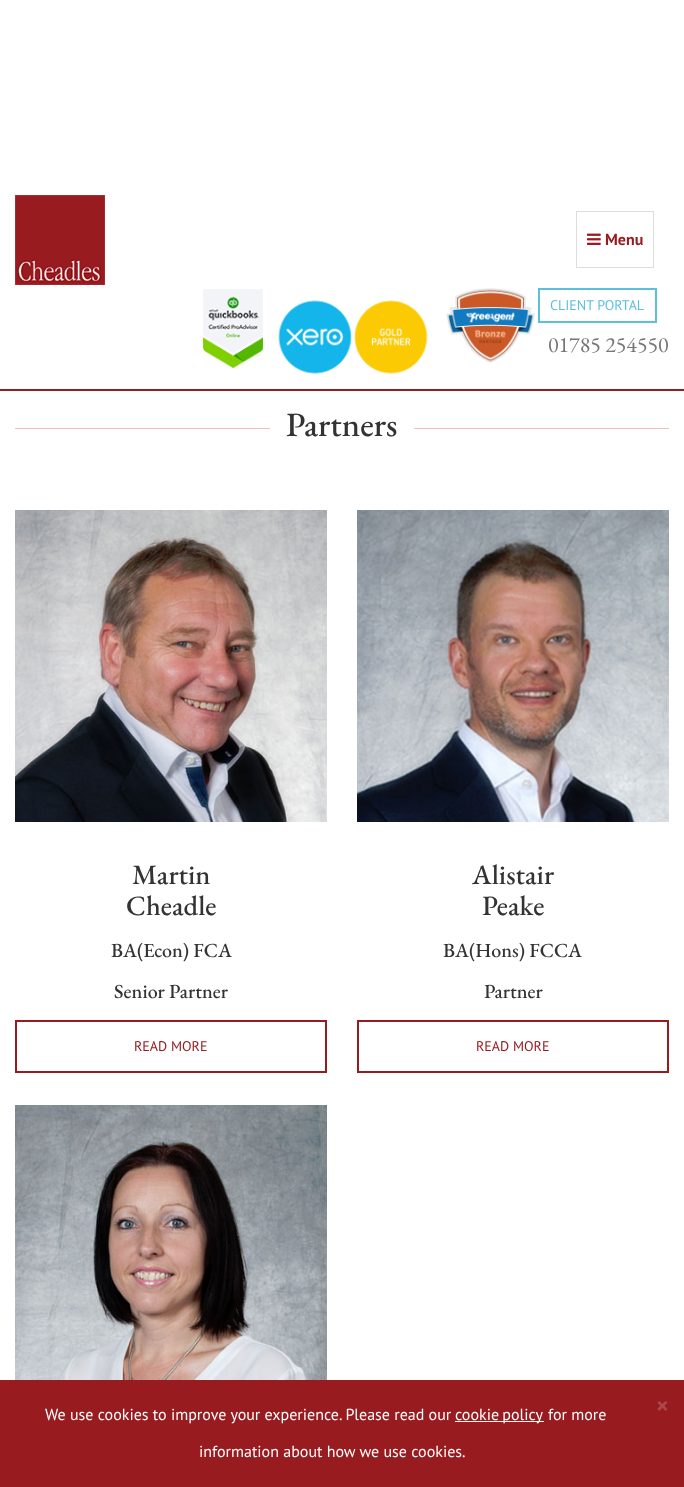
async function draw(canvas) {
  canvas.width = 684;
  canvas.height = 1487;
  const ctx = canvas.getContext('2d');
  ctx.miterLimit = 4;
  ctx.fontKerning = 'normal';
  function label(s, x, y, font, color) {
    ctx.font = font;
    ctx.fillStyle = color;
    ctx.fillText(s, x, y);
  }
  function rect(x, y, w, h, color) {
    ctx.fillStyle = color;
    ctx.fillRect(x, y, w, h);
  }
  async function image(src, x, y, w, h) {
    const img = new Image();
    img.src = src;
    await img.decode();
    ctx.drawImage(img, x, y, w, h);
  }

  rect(0, 0, 684, 1487, '#fff');
  rect(0, 389, 684, 2, '#981b20');
  await image('assets/img1.png', 15, 195, 90, 90);
  ctx.strokeStyle = '#ddd';
  ctx.strokeRect(576.5, 211.5, 77, 56);
  await image('assets/img2.png', 587, 233, 14, 12);
  label('Menu', 605, 245, 'bold 16px PT Sans', '#981b20');
  await image('assets/img3.png', 203, 289, 60, 79);
  await image('assets/img4.png', 278, 300, 150, 74);
  await image('assets/img5.png', 446, 288, 89, 75);
  ctx.strokeStyle = '#5bc0de';
  ctx.lineWidth = 2;
  ctx.strokeRect(539, 289, 117, 33);
  label('CLIENT PORTAL', 550, 310, '14px PT Sans', '#5bc0de');
  label('01785 254550', 548, 352, '22px EB Garamond', '#777');
  rect(15, 428, 654, 1, '#f4bec1');
  rect(270, 428, 144, 1, '#fefefe');
  label('Partners', 286, 436, '500 34px EB Garamond', '#333');
  await image('assets/img6.png', 15, 510, 312, 312);
  label('Martin', 132, 884, '500 28px EB Garamond', '#333');
  label('Cheadle', 126, 915, '500 28px EB Garamond', '#333');
  label('BA(Econ) FCA', 111, 957, '500 20px EB Garamond', '#333');
  label('Senior Partner', 114, 998, '500 20px EB Garamond', '#333');
  ctx.strokeStyle = '#981b20';
  ctx.strokeRect(16, 1021, 310, 51);
  label('READ MORE', 134, 1051, '14px PT Sans', '#981b20');
  await image('assets/img7.png', 357, 510, 312, 312);
  label('Alistair', 472, 884, '500 28px EB Garamond', '#333');
  label('Peake', 482, 915, '500 28px EB Garamond', '#333');
  label('BA(Hons) FCCA', 443, 957, '500 20px EB Garamond', '#333');
  label('Partner', 484, 998, '500 20px EB Garamond', '#333');
  ctx.strokeRect(358, 1021, 310, 51);
  label('READ MORE', 476, 1051, '14px PT Sans', '#981b20');
  await image('assets/img8.png', 15, 1105, 312, 275);
  rect(0, 1380, 684, 107, '#981b20');
  label('×', 656, 1414, 'bold 24px PT Sans', '#ac484c');
  label('We use cookies to improve your experience. Please read our', 45, 1420, '16px PT Sans', '#fefefe');
  rect(455, 1421, 89, 1, '#fefefe');
  ctx.wordSpacing = '-1px';
  label('cookie policy', 455, 1420, '16px PT Sans', '#fefefe');
  ctx.wordSpacing = '0px';
  label('for more', 548, 1420, '16px PT Sans', '#fefefe');
  label('information about how we use cookies.', 199, 1457, '16px PT Sans', '#fefefe');
}

draw(document.querySelector('canvas'));
